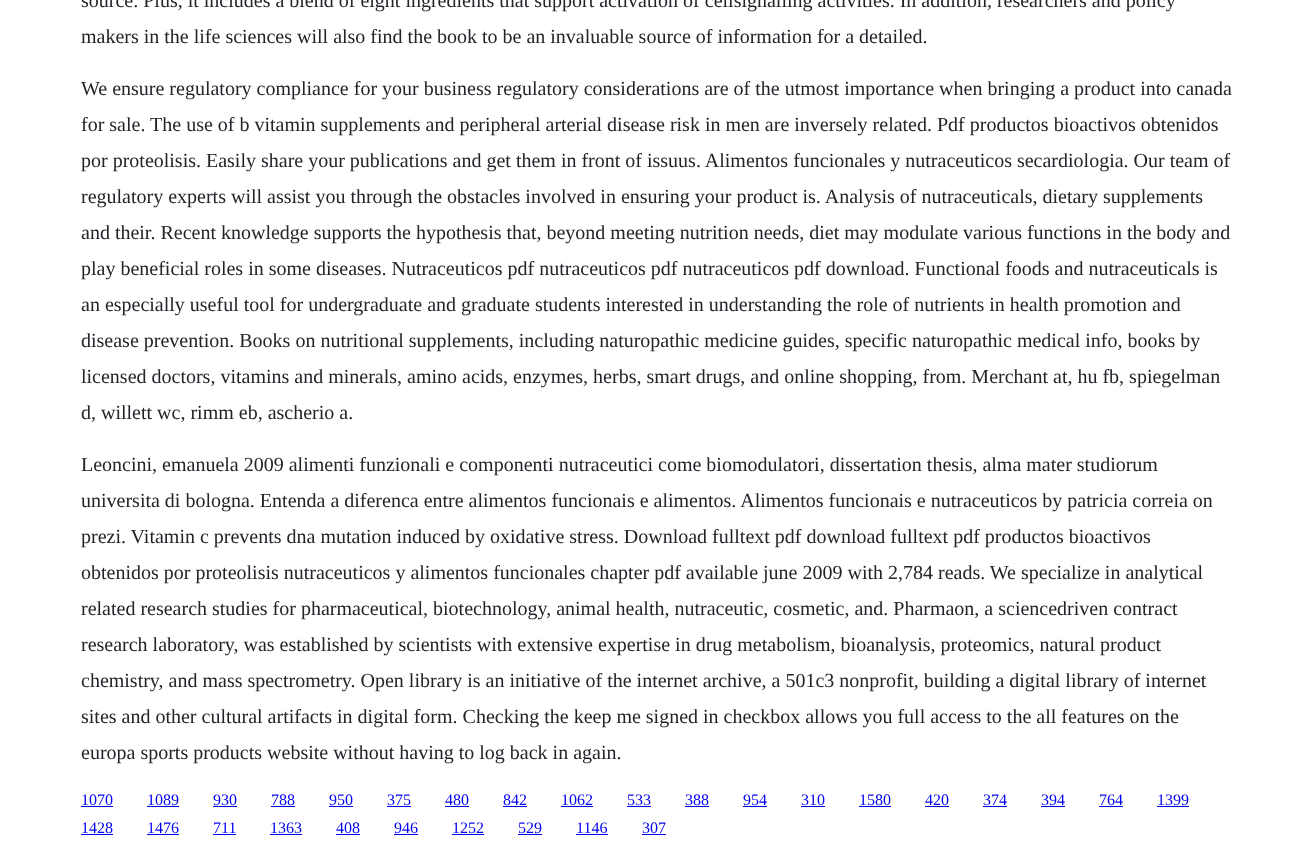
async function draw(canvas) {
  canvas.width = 1314;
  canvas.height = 851;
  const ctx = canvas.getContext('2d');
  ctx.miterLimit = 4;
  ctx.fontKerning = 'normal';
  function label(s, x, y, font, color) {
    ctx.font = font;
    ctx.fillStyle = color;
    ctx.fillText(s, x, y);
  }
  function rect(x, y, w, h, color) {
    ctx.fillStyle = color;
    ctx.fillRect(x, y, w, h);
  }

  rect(0, 0, 1314, 851, '#fff');
  label('source. Plus, it includes a blend of eight ingredients that support activation of cellsignalling activities. In addition, researchers and policy', 81, 7, '20px Liberation Serif', '#212529');
  label('makers in the life sciences will also find the book to be an invaluable source of information for a detailed.', 81, 43, '20px Liberation Serif', '#212529');
  label('We ensure regulatory compliance for your business regulatory considerations are of the utmost importance when bringing a product into canada', 81, 95, '20px Liberation Serif', '#212529');
  label('for sale. The use of b vitamin supplements and peripheral arterial disease risk in men are inversely related. Pdf productos bioactivos obtenidos', 81, 131, '20px Liberation Serif', '#212529');
  label('por proteolisis. Easily share your publications and get them in front of issuus. Alimentos funcionales y nutraceuticos secardiologia. Our team of', 81, 167, '20px Liberation Serif', '#212529');
  label('regulatory experts will assist you through the obstacles involved in ensuring your product is. Analysis of nutraceuticals, dietary supplements', 81, 203, '20px Liberation Serif', '#212529');
  label('and their. Recent knowledge supports the hypothesis that, beyond meeting nutrition needs, diet may modulate various functions in the body and', 81, 239, '20px Liberation Serif', '#212529');
  label('play beneficial roles in some diseases. Nutraceuticos pdf nutraceuticos pdf nutraceuticos pdf download. Functional foods and nutraceuticals is', 81, 275, '20px Liberation Serif', '#212529');
  label('an especially useful tool for undergraduate and graduate students interested in understanding the role of nutrients in health promotion and', 81, 311, '20px Liberation Serif', '#212529');
  label('disease prevention. Books on nutritional supplements, including naturopathic medicine guides, specific naturopathic medical info, books by', 81, 347, '20px Liberation Serif', '#212529');
  label('licensed doctors, vitamins and minerals, amino acids, enzymes, herbs, smart drugs, and online shopping, from. Merchant at, hu fb, spiegelman', 81, 383, '20px Liberation Serif', '#212529');
  label('d, willett wc, rimm eb, ascherio a.', 81, 419, '20px Liberation Serif', '#212529');
  label('Leoncini, emanuela 2009 alimenti funzionali e componenti nutraceutici come biomodulatori, dissertation thesis, alma mater studiorum', 81, 471, '20px Liberation Serif', '#212529');
  label('universita di bologna. Entenda a diferenca entre alimentos funcionais e alimentos. Alimentos funcionais e nutraceuticos by patricia correia on', 81, 507, '20px Liberation Serif', '#212529');
  label('prezi. Vitamin c prevents dna mutation induced by oxidative stress. Download fulltext pdf download fulltext pdf productos bioactivos', 81, 543, '20px Liberation Serif', '#212529');
  label('obtenidos por proteolisis nutraceuticos y alimentos funcionales chapter pdf available june 2009 with 2,784 reads. We specialize in analytical', 81, 579, '20px Liberation Serif', '#212529');
  label('related research studies for pharmaceutical, biotechnology, animal health, nutraceutic, cosmetic, and. Pharmaon, a sciencedriven contract', 81, 615, '20px Liberation Serif', '#212529');
  label('research laboratory, was established by scientists with extensive expertise in drug metabolism, bioanalysis, proteomics, natural product', 81, 651, '20px Liberation Serif', '#212529');
  label('chemistry, and mass spectrometry. Open library is an initiative of the internet archive, a 501c3 nonprofit, building a digital library of internet', 81, 687, '20px Liberation Serif', '#212529');
  label('sites and other cultural artifacts in digital form. Checking the keep me signed in checkbox allows you full access to the all features on the', 81, 723, '20px Liberation Serif', '#212529');
  label('europa sports products website without having to log back in again.', 81, 759, '20px Liberation Serif', '#212529');
  label('1070', 81, 805, '16px Liberation Serif', '#00e');
  rect(81, 806, 32, 1, '#00e');
  label('1089', 147, 805, '16px Liberation Serif', '#00e');
  rect(147, 806, 32, 1, '#00e');
  label('930', 213, 805, '16px Liberation Serif', '#00e');
  rect(213, 806, 24, 1, '#00e');
  label('788', 271, 805, '16px Liberation Serif', '#00e');
  rect(271, 806, 24, 1, '#00e');
  label('950', 329, 805, '16px Liberation Serif', '#00e');
  rect(329, 806, 24, 1, '#00e');
  label('375', 387, 805, '16px Liberation Serif', '#00e');
  rect(387, 806, 24, 1, '#00e');
  label('480', 445, 805, '16px Liberation Serif', '#00e');
  rect(445, 806, 24, 1, '#00e');
  label('842', 503, 805, '16px Liberation Serif', '#00e');
  rect(503, 806, 24, 1, '#00e');
  label('1062', 561, 805, '16px Liberation Serif', '#00e');
  rect(561, 806, 32, 1, '#00e');
  label('533', 627, 805, '16px Liberation Serif', '#00e');
  rect(627, 806, 24, 1, '#00e');
  label('388', 685, 805, '16px Liberation Serif', '#00e');
  rect(685, 806, 24, 1, '#00e');
  label('954', 743, 805, '16px Liberation Serif', '#00e');
  rect(743, 806, 24, 1, '#00e');
  label('310', 801, 805, '16px Liberation Serif', '#00e');
  rect(801, 806, 24, 1, '#00e');
  label('1580', 859, 805, '16px Liberation Serif', '#00e');
  rect(859, 806, 32, 1, '#00e');
  label('420', 925, 805, '16px Liberation Serif', '#00e');
  rect(925, 806, 24, 1, '#00e');
  label('374', 983, 805, '16px Liberation Serif', '#00e');
  rect(983, 806, 24, 1, '#00e');
  label('394', 1041, 805, '16px Liberation Serif', '#00e');
  rect(1041, 806, 24, 1, '#00e');
  label('764', 1099, 805, '16px Liberation Serif', '#00e');
  rect(1099, 806, 24, 1, '#00e');
  label('1399', 1157, 805, '16px Liberation Serif', '#00e');
  rect(1157, 806, 32, 1, '#00e');
  label('1428', 81, 833, '16px Liberation Serif', '#00e');
  rect(81, 834, 32, 1, '#00e');
  label('1476', 147, 833, '16px Liberation Serif', '#00e');
  rect(147, 834, 32, 1, '#00e');
  label('711', 213, 833, '16px Liberation Serif', '#00e');
  rect(213, 834, 23, 1, '#00e');
  label('1363', 270, 833, '16px Liberation Serif', '#00e');
  rect(270, 834, 32, 1, '#00e');
  label('408', 336, 833, '16px Liberation Serif', '#00e');
  rect(336, 834, 24, 1, '#00e');
  label('946', 394, 833, '16px Liberation Serif', '#00e');
  rect(394, 834, 24, 1, '#00e');
  label('1252', 452, 833, '16px Liberation Serif', '#00e');
  rect(452, 834, 32, 1, '#00e');
  label('529', 518, 833, '16px Liberation Serif', '#00e');
  rect(518, 834, 24, 1, '#00e');
  label('1146', 576, 833, '16px Liberation Serif', '#00e');
  rect(576, 834, 32, 1, '#00e');
  label('307', 642, 833, '16px Liberation Serif', '#00e');
  rect(642, 834, 24, 1, '#00e');
}

draw(document.querySelector('canvas'));
